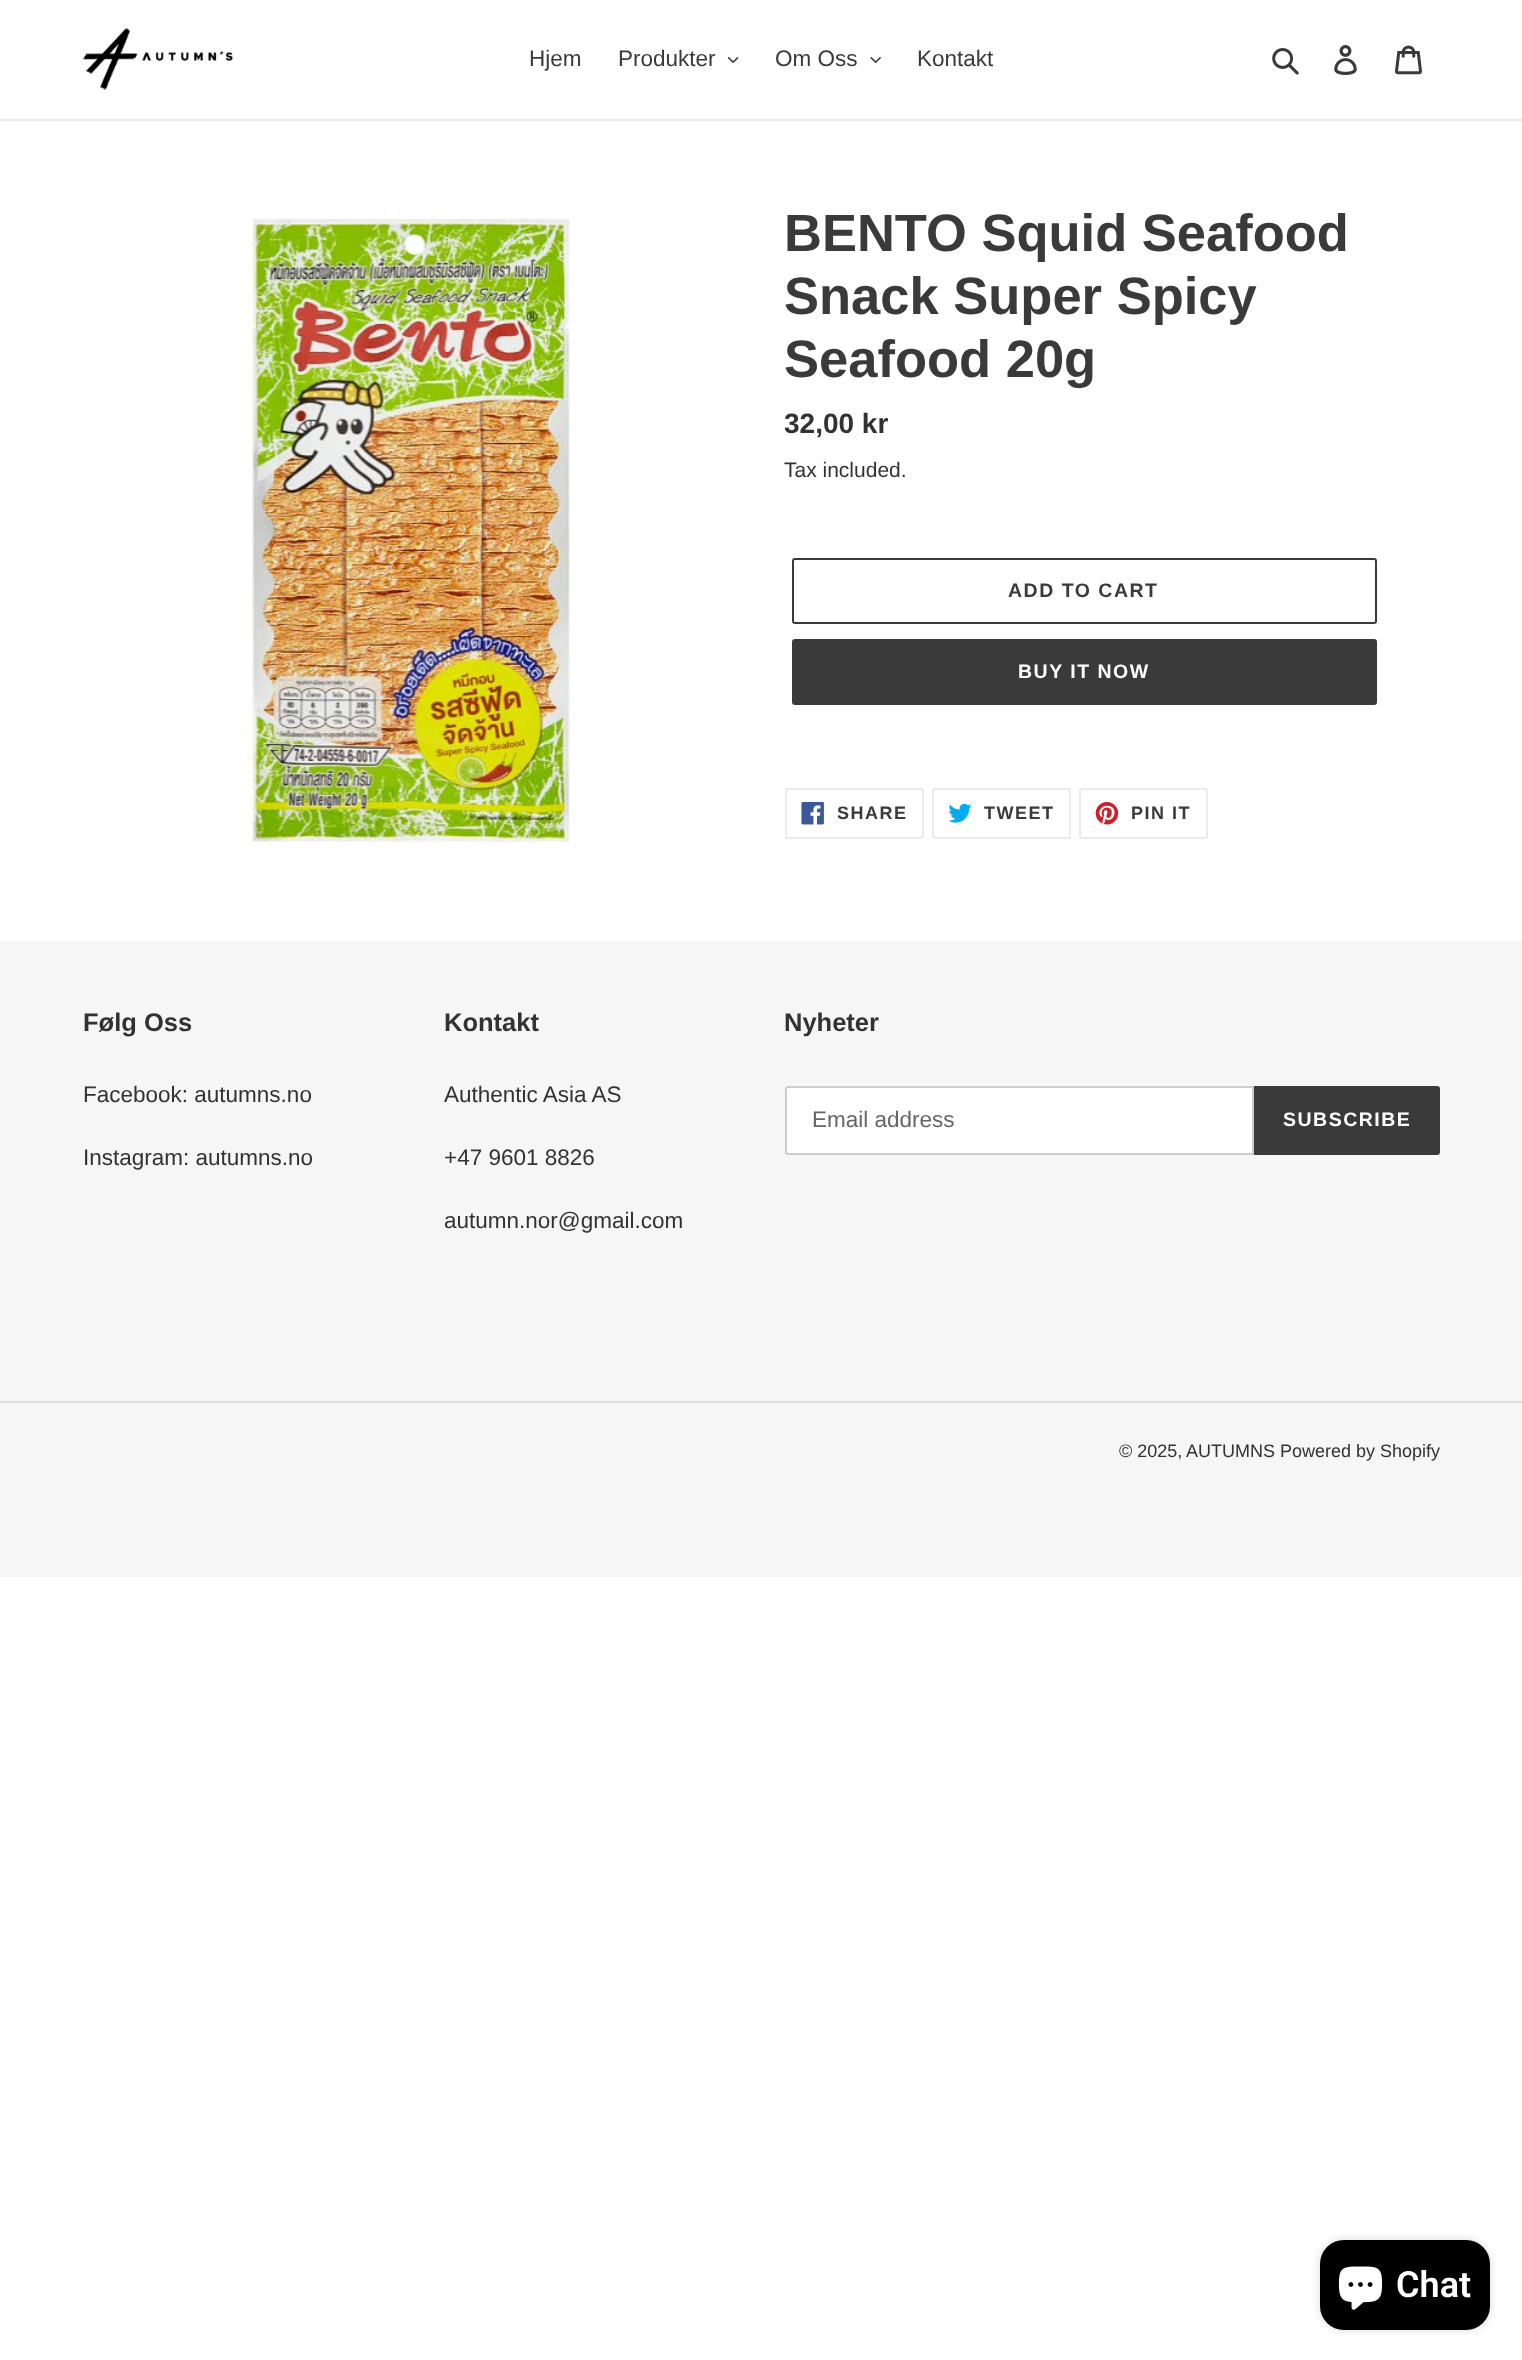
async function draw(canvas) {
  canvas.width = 1522;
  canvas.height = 2360;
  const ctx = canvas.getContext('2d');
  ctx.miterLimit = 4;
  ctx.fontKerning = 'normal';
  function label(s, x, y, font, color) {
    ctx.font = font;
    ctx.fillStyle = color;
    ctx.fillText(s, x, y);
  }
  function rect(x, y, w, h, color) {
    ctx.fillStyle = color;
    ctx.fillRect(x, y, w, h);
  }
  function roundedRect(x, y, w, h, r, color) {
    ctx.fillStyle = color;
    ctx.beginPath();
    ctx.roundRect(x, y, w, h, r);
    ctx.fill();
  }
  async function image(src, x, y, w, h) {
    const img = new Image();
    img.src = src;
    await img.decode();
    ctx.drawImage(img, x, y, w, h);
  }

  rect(0, 0, 1522, 2360, '#fff');
  rect(0, 119, 1522, 2, '#ebebeb');
  await image('assets/img1.png', 82, 28, 151, 62);
  label('Hjem', 529, 66, '22.5px Liberation Sans', '#3a3a3a');
  label('Produkter', 618, 66, '22.5px Liberation Sans', '#3a3a3a');
  await image('assets/img2.png', 728, 57, 11, 6);
  label('Om Oss', 775, 66, '22.5px Liberation Sans', '#3a3a3a');
  await image('assets/img3.png', 870, 57, 11, 6);
  label('Kontakt', 917, 66, '22.5px Liberation Sans', '#3a3a3a');
  await image('assets/img4.png', 1272, 48, 27, 27);
  await image('assets/img5.png', 1334, 45, 23, 30);
  await image('assets/img6.png', 1395, 45, 27, 30);
  await image('assets/img7.png', 240, 218, 330, 627);
  label('BENTO Squid Seafood', 784, 251, 'bold 52.5px Liberation Sans', '#3a3a3a');
  label('Snack Super Spicy', 784, 314, 'bold 52.5px Liberation Sans', '#3a3a3a');
  label('Seafood 20g', 784, 377, 'bold 52.5px Liberation Sans', '#3a3a3a');
  label('32,00 kr', 784, 433, 'bold 28px Liberation Sans', '#333232');
  label('Tax included.', 784, 477, '21px Liberation Sans', '#333232');
  ctx.beginPath();
  ctx.roundRect(793, 559, 583, 64, 2);
  ctx.strokeStyle = '#3a3a3a';
  ctx.lineWidth = 2;
  ctx.stroke();
  ctx.letterSpacing = '1.5px';
  label('ADD TO CART', 1008, 597, 'bold 19.5px Liberation Sans', '#3a3a3a');
  roundedRect(792, 639, 585, 66, 3, '#3a3a3a');
  label('BUY IT NOW', 1018, 678, 'bold 19.5px Liberation Sans', '#fff');
  ctx.beginPath();
  ctx.roundRect(786, 789, 137, 49, 2);
  ctx.strokeStyle = '#ebebeb';
  ctx.stroke();
  await image('assets/img8.png', 801, 802, 23, 23);
  label('SHARE', 837, 819, 'bold 18px Liberation Sans', '#3a3a3a');
  ctx.beginPath();
  ctx.roundRect(933, 789, 137, 49, 2);
  ctx.stroke();
  await image('assets/img9.png', 948, 803, 24, 20);
  label('TWEET', 984, 819, 'bold 18px Liberation Sans', '#3a3a3a');
  ctx.beginPath();
  ctx.roundRect(1080, 789, 127, 49, 2);
  ctx.stroke();
  await image('assets/img10.png', 1095, 802, 24, 23);
  label('PIN IT', 1131, 819, 'bold 18px Liberation Sans', '#3a3a3a');
  rect(0, 941, 1522, 636, '#f6f6f6');
  ctx.letterSpacing = '0px';
  label('Følg Oss', 83, 1031, 'bold 25.5px Liberation Sans', '#333232');
  label('Facebook: autumns.no', 83, 1102, '22.5px Liberation Sans', '#333232');
  label('Instagram: autumns.no', 83, 1165, '22.5px Liberation Sans', '#333232');
  label('Kontakt', 444, 1031, 'bold 25.5px Liberation Sans', '#333232');
  label('Authentic Asia AS', 444, 1102, '22.5px Liberation Sans', '#333232');
  label('+47 9601 8826', 444, 1165, '22.5px Liberation Sans', '#333232');
  label('autumn.nor@gmail.com', 444, 1228, '22.5px Liberation Sans', '#333232');
  label('Nyheter', 784, 1031, 'bold 25.5px Liberation Sans', '#333232');
  ctx.fillStyle = '#fff';
  ctx.beginPath();
  ctx.roundRect(786, 1087, 467, 67, [2, 0, 0, 2]);
  ctx.fill();
  ctx.strokeStyle = '#ccc';
  ctx.stroke();
  label('Email address', 812, 1127, '22.5px Liberation Sans', '#666');
  ctx.fillStyle = '#3a3a3a';
  ctx.beginPath();
  ctx.roundRect(1254, 1086, 186, 69, [0, 3, 3, 0]);
  ctx.fill();
  ctx.letterSpacing = '1.5px';
  label('SUBSCRIBE', 1283, 1126, 'bold 19.5px Liberation Sans', '#fff');
  rect(0, 1401, 1522, 2, '#ddd');
  ctx.letterSpacing = '0px';
  label('© 2025,', 1119, 1457, '18px Liberation Sans', '#333232');
  label('AUTUMNS Powered by Shopify', 1186, 1457, '18px Liberation Sans', '#333232');
  ctx.fillStyle = '#00000026';
  ctx.filter = 'blur(4px)';
  ctx.beginPath();
  ctx.roundRect(1320, 2240, 170, 90, 24);
  ctx.fill();
  ctx.filter = 'none';
  roundedRect(1320, 2240, 170, 90, 24, '#000');
  await image('assets/img11.png', 1338, 2266, 45, 44);
  label('Chat', 1396, 2297, '600 36px Roboto', '#fff');
}

draw(document.querySelector('canvas'));
